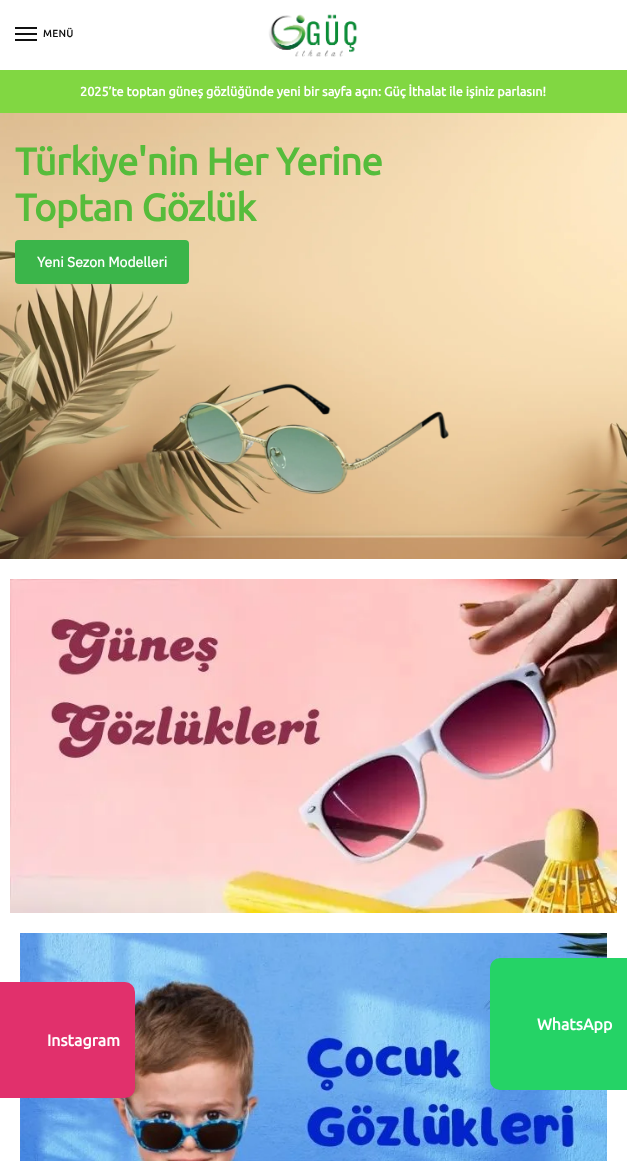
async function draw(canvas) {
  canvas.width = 642;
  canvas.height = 1161;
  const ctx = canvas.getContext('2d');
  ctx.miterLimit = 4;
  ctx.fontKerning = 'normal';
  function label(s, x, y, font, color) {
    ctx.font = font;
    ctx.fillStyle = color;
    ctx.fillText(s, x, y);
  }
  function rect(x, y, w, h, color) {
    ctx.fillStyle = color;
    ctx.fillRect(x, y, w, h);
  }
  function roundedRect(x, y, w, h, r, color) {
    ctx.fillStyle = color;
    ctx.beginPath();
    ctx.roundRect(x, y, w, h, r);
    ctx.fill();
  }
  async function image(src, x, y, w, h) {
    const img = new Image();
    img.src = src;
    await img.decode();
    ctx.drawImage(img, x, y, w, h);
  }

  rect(0, 0, 642, 1161, '#fff');
  rect(15, 27, 22, 2, '#111');
  ctx.letterSpacing = '0.5px';
  label('MENÜ', 43, 37, 'bold 10px Ubuntu', '#111');
  rect(15, 33, 22, 2, '#111');
  rect(15, 39, 22, 2, '#111');
  await image('assets/img1.png', 268, 14, 90, 43);
  rect(0, 70, 627, 43, '#81d742');
  ctx.letterSpacing = '0px';
  label('2025’te toptan güneş gözlüğünde yeni bir sayfa açın: Güç İthalat ile işiniz parlasın!', 80, 96, 'bold 12.7px Ubuntu', '#fff');
  await image('assets/img2.png', 0, 113, 627, 446);
  ctx.letterSpacing = '-0.5px';
  label('Türkiye\'nin Her Yerine', 15, 175, 'bold 38px Ubuntu', '#56bc3b');
  label('Toptan Gözlük', 15, 221, 'bold 38px Ubuntu', '#56bc3b');
  roundedRect(15, 240, 174, 44, 4, '#3bb54a');
  ctx.letterSpacing = '0px';
  label('Yeni Sezon Modelleri', 37, 267, 'bold 14px IBM Plex Sans', '#fff');
  await image('assets/img3.png', 179, 383, 270, 112);
  await image('assets/img4.png', 10, 579, 607, 334);
  await image('assets/img5.png', 20, 933, 587, 228);
  ctx.fillStyle = '#25d366';
  ctx.beginPath();
  ctx.roundRect(490, 958, 137, 132, [10, 0, 0, 10]);
  ctx.fill();
  label('WhatsApp', 537, 1030, 'bold 16px Ubuntu', '#fff');
  ctx.fillStyle = '#e1306c';
  ctx.beginPath();
  ctx.roundRect(0, 982, 135, 116, [0, 10, 10, 0]);
  ctx.fill();
  label('Instagram', 47, 1046, 'bold 16px Ubuntu', '#fff');
}

draw(document.querySelector('canvas'));
